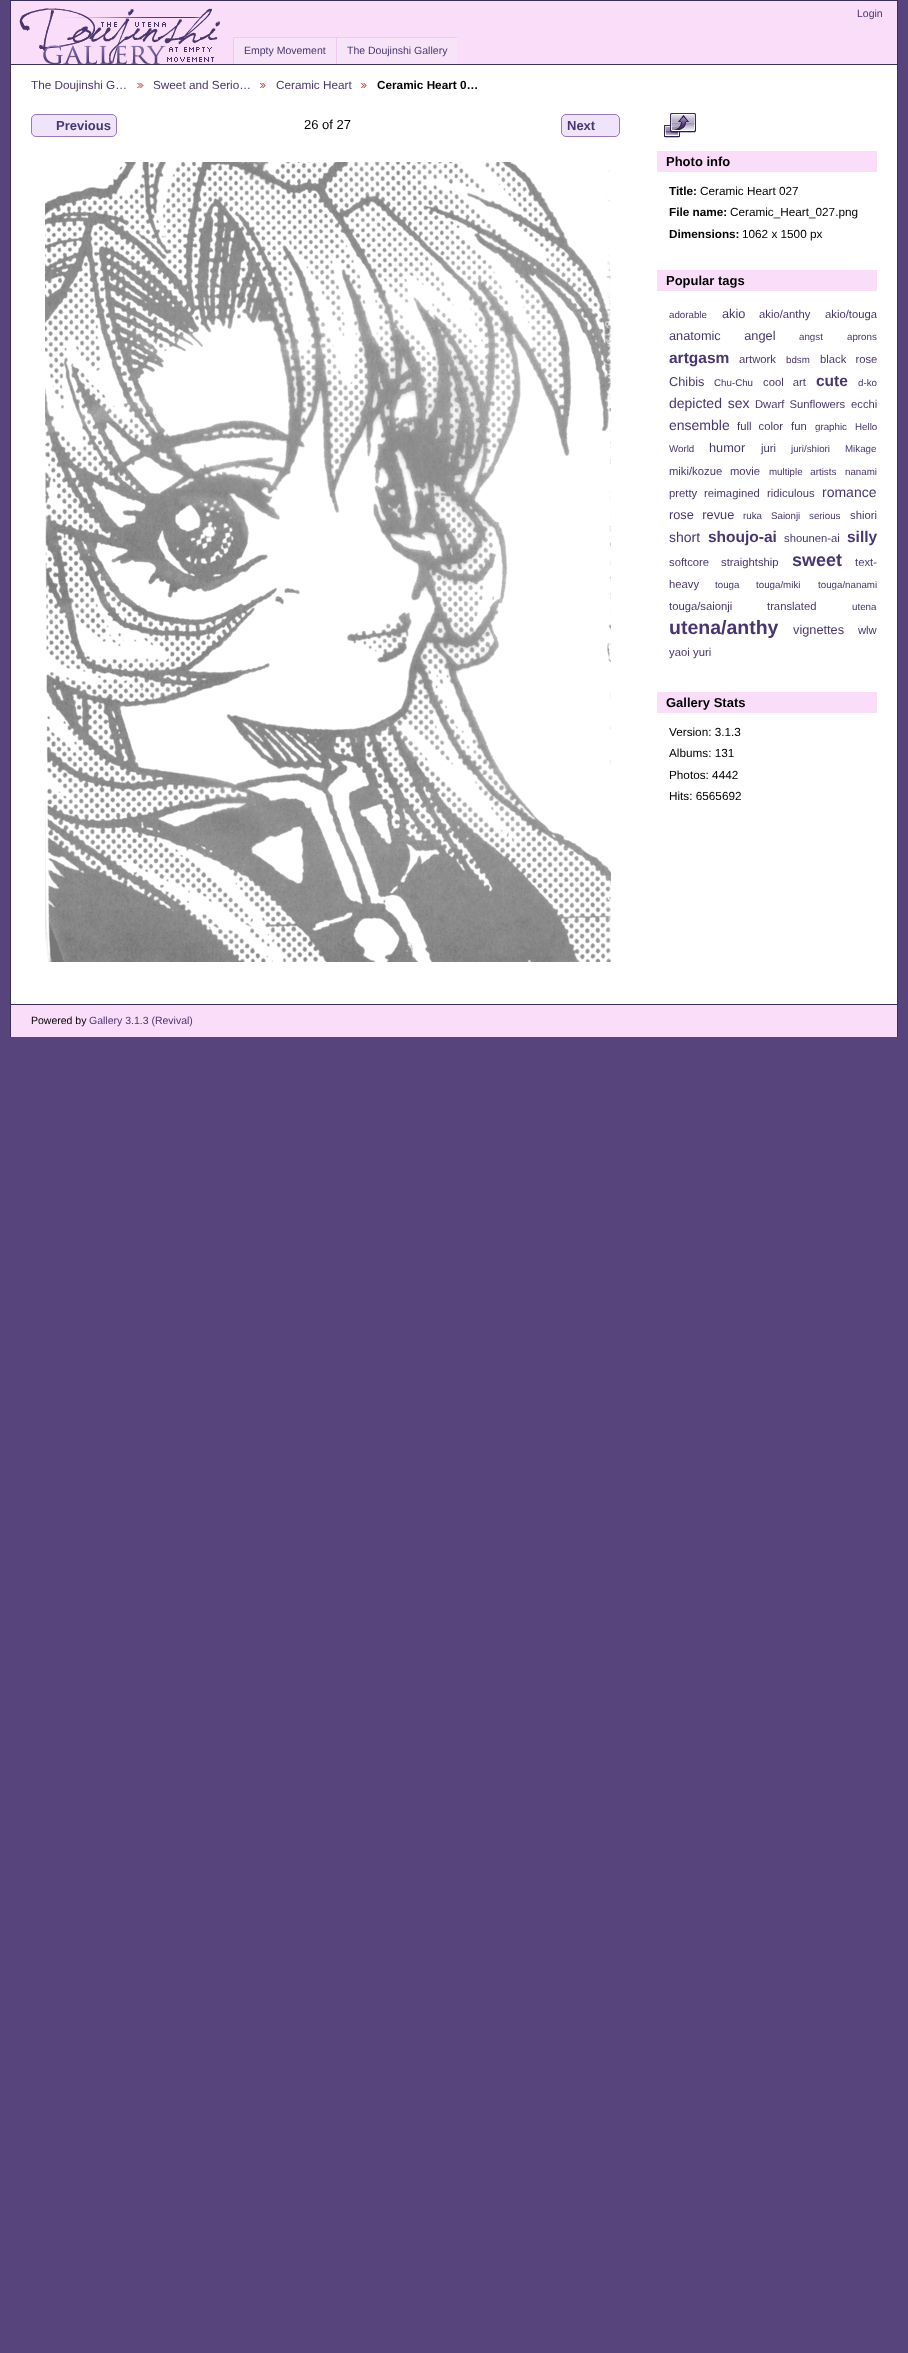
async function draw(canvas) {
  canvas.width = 908;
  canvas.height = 2353;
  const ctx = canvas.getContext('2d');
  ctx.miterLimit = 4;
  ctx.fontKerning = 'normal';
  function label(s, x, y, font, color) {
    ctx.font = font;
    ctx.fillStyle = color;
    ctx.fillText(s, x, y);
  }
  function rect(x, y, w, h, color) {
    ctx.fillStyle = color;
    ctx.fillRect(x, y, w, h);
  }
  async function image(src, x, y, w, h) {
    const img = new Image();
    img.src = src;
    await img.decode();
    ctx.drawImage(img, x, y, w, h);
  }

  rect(0, 0, 908, 2353, '#58447d');
  rect(11, 65, 886, 939, '#fff');
  rect(10, 0, 888, 1, '#3b2f62');
  rect(897, 0, 1, 1037, '#3b2f62');
  rect(10, 0, 1, 1037, '#3b2f62');
  rect(11, 1, 886, 63, '#f9ddf9');
  rect(11, 64, 886, 1, '#3b2f62');
  await image('assets/img1.png', 19, 8, 201, 56);
  label('Login', 857, 17, '10.5px Liberation Sans', '#483670');
  rect(234, 38, 102, 26, '#f7e4f9');
  rect(233, 37, 224, 1, '#eecbee');
  rect(233, 37, 1, 27, '#eecbee');
  label('Empty Movement', 244, 54, '10.5px Liberation Sans', '#483670');
  rect(337, 38, 120, 26, '#f7e4f9');
  rect(336, 37, 1, 27, '#eecbee');
  label('The Doujinshi Gallery', 347, 54, '10.5px Liberation Sans', '#483670');
  label('The Doujinshi G…', 31, 89, '11.75px Liberation Sans', '#483670');
  await image('assets/img2.png', 137, 83, 7, 5);
  label('Sweet and Serio…', 153, 89, '11.75px Liberation Sans', '#483670');
  await image('assets/img3.png', 260, 83, 6, 5);
  label('Ceramic Heart', 276, 89, '11.75px Liberation Sans', '#483670');
  await image('assets/img3.png', 361, 83, 6, 5);
  label('Ceramic Heart 0…', 377, 89, 'bold 11.75px Liberation Sans', '#000');
  ctx.fillStyle = '#efe4f9';
  ctx.beginPath();
  ctx.roundRect(31.5, 114.5, 85, 22, 4.5);
  ctx.fill();
  ctx.strokeStyle = '#9d75bc';
  ctx.stroke();
  label('Previous', 56, 130, 'bold 13px Liberation Sans', '#483670');
  label('26 of 27', 304, 129, '13px Liberation Sans', '#000');
  ctx.fillStyle = '#efe4f9';
  ctx.beginPath();
  ctx.roundRect(561.5, 114.5, 58, 22, 4.5);
  ctx.fill();
  ctx.stroke();
  label('Next', 567, 130, 'bold 13px Liberation Sans', '#483670');
  await image('assets/img4.png', 45, 162, 566, 800);
  await image('assets/img5.png', 664, 113, 32, 25);
  rect(657, 151, 220, 21, '#f9ddf9');
  label('Photo info', 666, 166, 'bold 13px Liberation Sans', '#000');
  label('Title:', 669, 195, 'bold 11.75px Liberation Sans', '#000');
  label('Ceramic Heart 027', 700, 195, '11.75px Liberation Sans', '#000');
  label('File name:', 669, 216, 'bold 11.75px Liberation Sans', '#000');
  label('Ceramic_Heart_027.png', 730, 216, '11.75px Liberation Sans', '#000');
  label('Dimensions:', 669, 238, 'bold 11.75px Liberation Sans', '#000');
  label('1062 x 1500 px', 742, 238, '11.75px Liberation Sans', '#000');
  rect(657, 270, 220, 21, '#f9ddf9');
  label('Popular tags', 666, 285, 'bold 13px Liberation Sans', '#000');
  label('adorable', 669, 318, '9.75px Liberation Sans', '#483670');
  label('akio', 722, 318, '12.75px Liberation Sans', '#483670');
  label('akio/anthy', 759, 318, '11.25px Liberation Sans', '#483670');
  label('akio/touga', 825, 318, '11.25px Liberation Sans', '#483670');
  ctx.wordSpacing = '20px';
  label('anatomic angel', 669, 340, '12.75px Liberation Sans', '#483670');
  ctx.wordSpacing = '0px';
  label('angst', 799, 340, '9.75px Liberation Sans', '#483670');
  label('aprons', 847, 340, '9.75px Liberation Sans', '#483670');
  label('artgasm', 669, 363, 'bold 15.5px Liberation Sans', '#483670');
  label('artwork', 739, 363, '11.25px Liberation Sans', '#483670');
  label('bdsm', 786, 363, '9.75px Liberation Sans', '#483670');
  ctx.wordSpacing = '6px';
  label('black rose', 820, 363, '11.25px Liberation Sans', '#483670');
  ctx.wordSpacing = '0px';
  label('Chibis', 669, 386, '12.75px Liberation Sans', '#483670');
  label('Chu-Chu', 714, 386, '9.75px Liberation Sans', '#483670');
  ctx.wordSpacing = '6px';
  label('cool art', 763, 386, '11.25px Liberation Sans', '#483670');
  ctx.wordSpacing = '0px';
  label('cute', 816, 386, 'bold 15.5px Liberation Sans', '#483670');
  label('d-ko', 858, 386, '9.75px Liberation Sans', '#483670');
  ctx.wordSpacing = '2px';
  label('depicted sex', 669, 408, '14px Liberation Sans', '#483670');
  label('Dwarf Sunflowers', 755, 408, '11.25px Liberation Sans', '#483670');
  ctx.wordSpacing = '0px';
  label('ecchi', 851, 408, '11.25px Liberation Sans', '#483670');
  label('ensemble', 669, 430, '14px Liberation Sans', '#483670');
  ctx.wordSpacing = '4px';
  label('full color', 737, 430, '11.25px Liberation Sans', '#483670');
  ctx.wordSpacing = '0px';
  label('fun', 791, 430, '11.25px Liberation Sans', '#483670');
  label('graphic', 815, 430, '9.75px Liberation Sans', '#483670');
  label('Hello', 855, 430, '9.75px Liberation Sans', '#483670');
  label('World', 669, 452, '9.75px Liberation Sans', '#483670');
  label('humor', 709, 452, '12.75px Liberation Sans', '#483670');
  label('juri', 761, 452, '11.25px Liberation Sans', '#483670');
  label('juri/shiori', 791, 452, '9.75px Liberation Sans', '#483670');
  label('Mikage', 845, 452, '9.75px Liberation Sans', '#483670');
  label('miki/kozue', 669, 475, '11.25px Liberation Sans', '#483670');
  label('movie', 730, 475, '11.25px Liberation Sans', '#483670');
  ctx.wordSpacing = '5px';
  label('multiple artists', 769, 475, '9.75px Liberation Sans', '#483670');
  ctx.wordSpacing = '0px';
  label('nanami', 845, 475, '9.75px Liberation Sans', '#483670');
  label('pretty', 669, 497, '11.25px Liberation Sans', '#483670');
  label('reimagined', 704, 497, '11.25px Liberation Sans', '#483670');
  label('ridiculous', 767, 497, '11.25px Liberation Sans', '#483670');
  label('romance', 822, 497, '14px Liberation Sans', '#483670');
  ctx.wordSpacing = '5px';
  label('rose revue', 669, 519, '12.75px Liberation Sans', '#483670');
  ctx.wordSpacing = '0px';
  label('ruka', 743, 519, '9.75px Liberation Sans', '#483670');
  label('Saionji', 771, 519, '9.75px Liberation Sans', '#483670');
  label('serious', 809, 519, '9.75px Liberation Sans', '#483670');
  label('shiori', 850, 519, '11.25px Liberation Sans', '#483670');
  label('short', 669, 542, '14px Liberation Sans', '#483670');
  label('shoujo-ai', 708, 542, 'bold 15.5px Liberation Sans', '#483670');
  label('shounen-ai', 784, 542, '11.25px Liberation Sans', '#483670');
  label('silly', 847, 542, 'bold 15.5px Liberation Sans', '#483670');
  label('softcore', 669, 566, '11.25px Liberation Sans', '#483670');
  label('straightship', 721, 566, '11.25px Liberation Sans', '#483670');
  label('sweet', 792, 566, 'bold 18px Liberation Sans', '#483670');
  label('text-', 855, 566, '11.25px Liberation Sans', '#483670');
  label('heavy', 669, 588, '11.25px Liberation Sans', '#483670');
  label('touga', 715, 588, '9.75px Liberation Sans', '#483670');
  label('touga/miki', 756, 588, '9.75px Liberation Sans', '#483670');
  label('touga/nanami', 818, 588, '9.75px Liberation Sans', '#483670');
  label('touga/saionji', 669, 610, '11.25px Liberation Sans', '#483670');
  label('translated', 767, 610, '11.25px Liberation Sans', '#483670');
  label('utena', 852, 610, '9.75px Liberation Sans', '#483670');
  label('utena/anthy', 669, 634, 'bold 19.5px Liberation Sans', '#483670');
  label('vignettes', 793, 634, '12.75px Liberation Sans', '#483670');
  label('wlw', 858, 634, '11.25px Liberation Sans', '#483670');
  label('yaoi', 669, 656, '11.25px Liberation Sans', '#483670');
  label('yuri', 693, 656, '11.25px Liberation Sans', '#483670');
  rect(657, 692, 220, 21, '#f9ddf9');
  label('Gallery Stats', 666, 707, 'bold 13px Liberation Sans', '#000');
  label('Version: 3.1.3', 669, 736, '11.75px Liberation Sans', '#000');
  label('Albums: 131', 669, 757, '11.75px Liberation Sans', '#000');
  label('Photos: 4442', 669, 779, '11.75px Liberation Sans', '#000');
  label('Hits: 6565692', 669, 800, '11.75px Liberation Sans', '#000');
  rect(11, 1005, 886, 32, '#f9ddf9');
  rect(11, 1004, 886, 1, '#3b2f62');
  label('Powered by', 31, 1024, '10.5px Liberation Sans', '#000');
  label('Gallery 3.1.3 (Revival)', 89, 1024, '10.5px Liberation Sans', '#483670');
}

draw(document.querySelector('canvas'));
